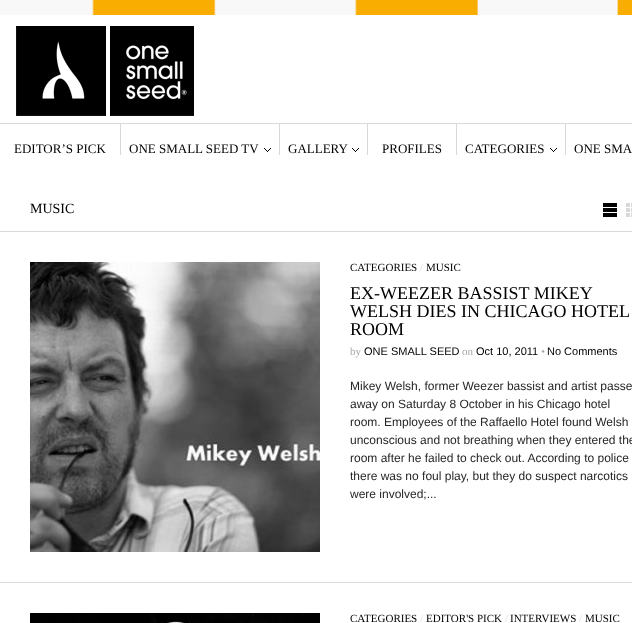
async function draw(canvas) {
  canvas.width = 632;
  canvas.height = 623;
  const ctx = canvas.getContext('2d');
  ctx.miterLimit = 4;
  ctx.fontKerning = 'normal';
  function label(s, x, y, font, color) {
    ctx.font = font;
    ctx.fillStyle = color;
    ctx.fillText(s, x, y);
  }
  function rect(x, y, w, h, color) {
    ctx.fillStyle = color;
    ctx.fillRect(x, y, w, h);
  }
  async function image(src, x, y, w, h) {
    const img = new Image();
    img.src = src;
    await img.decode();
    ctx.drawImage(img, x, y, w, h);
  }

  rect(0, 0, 632, 623, '#fff');
  await image('assets/img1.png', 0, 0, 632, 15);
  await image('assets/img2.png', 16, 26, 178, 90);
  rect(0, 123, 632, 1, '#d9d9d9');
  label('EDITOR’S PICK', 14, 153, '13px Liberation Serif', '#000');
  rect(120, 124, 1, 31, '#d9d9d9');
  await image('assets/img3.png', 264, 148, 7, 4);
  label('ONE SMALL SEED TV', 129, 153, '13px Liberation Serif', '#000');
  rect(279, 124, 1, 31, '#d9d9d9');
  await image('assets/img3.png', 352, 148, 7, 4);
  label('GALLERY', 288, 153, '13px Liberation Serif', '#000');
  rect(367, 124, 1, 31, '#d9d9d9');
  label('PROFILES', 382, 153, '13px Liberation Serif', '#000');
  rect(456, 124, 1, 31, '#d9d9d9');
  await image('assets/img3.png', 550, 148, 7, 4);
  label('CATEGORIES', 465, 153, '13px Liberation Serif', '#000');
  rect(565, 124, 1, 31, '#d9d9d9');
  label('ONE SMA', 574, 153, '13px Liberation Serif', '#000');
  rect(0, 231, 632, 1, '#d9d9d9');
  label('MUSIC', 30, 213, '14px Liberation Serif', '#000');
  await image('assets/img4.png', 603, 203, 29, 14);
  rect(0, 582, 632, 1, '#d9d9d9');
  await image('assets/img5.png', 30, 262, 290, 290);
  label('CATEGORIES', 350, 271, '11px Liberation Serif', '#000');
  label('/', 420, 271, '11px Liberation Serif', '#d9d9d9');
  label('MUSIC', 426, 271, '11px Liberation Serif', '#000');
  label('EX-WEEZER BASSIST MIKEY', 350, 299, '18px Liberation Serif', '#000');
  label('WELSH DIES IN CHICAGO HOTEL', 350, 317, '18px Liberation Serif', '#000');
  label('ROOM', 350, 335, '18px Liberation Serif', '#000');
  label('by', 350, 355, '11px Liberation Serif', '#aaa9a9');
  label('ONE SMALL SEED', 364, 355, '11px Liberation Sans', '#000');
  label('on', 462, 355, '11px Liberation Serif', '#aaa9a9');
  label('Oct 10, 2011', 476, 355, '11px Liberation Sans', '#000');
  label('•', 541, 355, 'italic 11px Liberation Serif', '#aaa9a9');
  label('No Comments', 547, 355, '11px Liberation Sans', '#000');
  label('Mikey Welsh, former Weezer bassist and artist passe', 350, 390, '12px Liberation Sans', '#262626');
  label('away on Saturday 8 October in his Chicago hotel', 350, 408, '12px Liberation Sans', '#262626');
  label('room. Employees of the Raffaello Hotel found Welsh', 350, 426, '12px Liberation Sans', '#262626');
  label('unconscious and not breathing when they entered the', 350, 444, '12px Liberation Sans', '#262626');
  label('room after he failed to check out. According to police', 350, 462, '12px Liberation Sans', '#262626');
  label('there was no foul play, but they do suspect narcotics', 350, 480, '12px Liberation Sans', '#262626');
  label('were involved;...', 350, 498, '12px Liberation Sans', '#262626');
  await image('assets/img6.png', 30, 613, 290, 10);
  label('CATEGORIES', 350, 622, '11px Liberation Serif', '#000');
  label('/', 420, 622, '11px Liberation Serif', '#d9d9d9');
  label('EDITOR\'S PICK', 426, 622, '11px Liberation Serif', '#000');
  label('/', 505, 622, '11px Liberation Serif', '#d9d9d9');
  label('INTERVIEWS', 510, 622, '11px Liberation Serif', '#000');
  label('/', 579, 622, '11px Liberation Serif', '#d9d9d9');
  label('MUSIC', 585, 622, '11px Liberation Serif', '#000');
}

draw(document.querySelector('canvas'));
